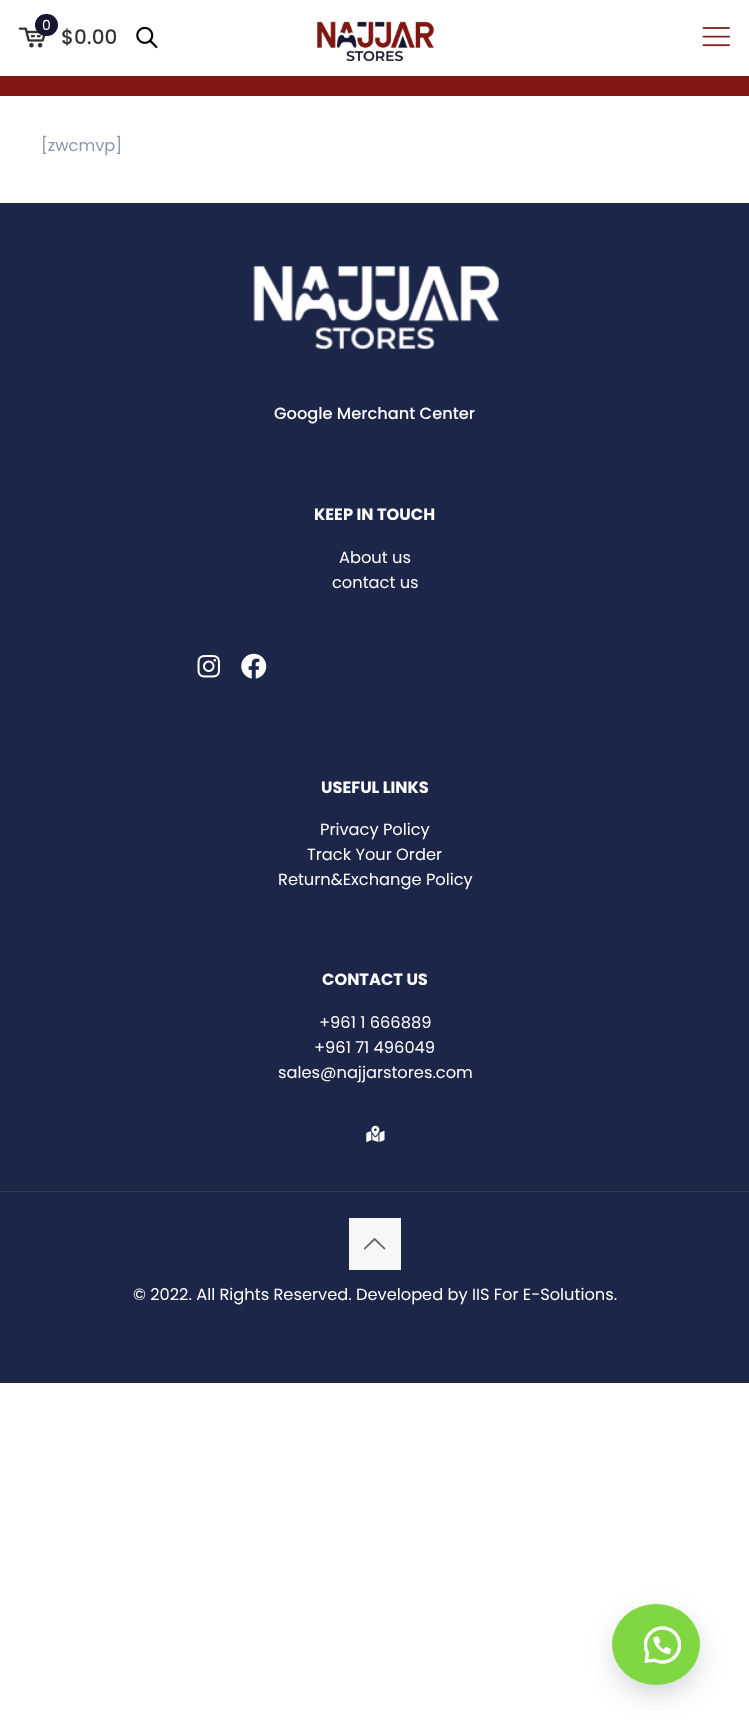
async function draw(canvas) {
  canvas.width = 749;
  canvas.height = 1734;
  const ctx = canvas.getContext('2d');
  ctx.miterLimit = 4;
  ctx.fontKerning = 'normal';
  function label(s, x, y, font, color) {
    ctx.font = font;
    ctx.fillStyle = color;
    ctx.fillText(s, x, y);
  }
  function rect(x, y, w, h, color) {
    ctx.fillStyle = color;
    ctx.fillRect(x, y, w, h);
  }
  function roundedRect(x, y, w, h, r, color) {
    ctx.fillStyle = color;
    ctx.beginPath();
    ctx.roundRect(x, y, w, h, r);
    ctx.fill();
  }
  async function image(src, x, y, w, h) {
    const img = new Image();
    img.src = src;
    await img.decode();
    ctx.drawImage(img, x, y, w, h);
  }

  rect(0, 0, 749, 1734, '#fff');
  await image('assets/img1.png', 18, 27, 28, 21);
  roundedRect(35, 14, 23, 22, 11, '#16162f');
  label('0', 42, 30, '14px Poppins', '#fff');
  label('$0.00', 61, 44, '500 20px Poppins', '#333');
  await image('assets/img2.png', 136, 26, 22, 23);
  await image('assets/img3.png', 317, 21, 117, 41);
  await image('assets/img4.png', 702, 27, 28, 20);
  rect(0, 76, 749, 20, '#801713');
  label('[zwcmvp]', 41, 151, '16.25px Poppins', '#8b97aa');
  rect(0, 203, 749, 1180, '#1c2649');
  await image('assets/img5.png', 253, 266, 246, 83);
  label('Google Merchant Center', 274, 419, '500 16.25px Poppins', '#fff');
  label('KEEP IN TOUCH', 314, 520, 'bold 16.25px Poppins', '#fff');
  label('About us', 339, 563, '16.25px Poppins', '#fff');
  label('contact us', 332, 588, '16.25px Poppins', '#fff');
  await image('assets/img6.png', 197, 655, 23, 23);
  await image('assets/img7.png', 241, 653, 26, 26);
  label('USEFUL LINKS', 321, 793, 'bold 16.25px Poppins', '#fff');
  label('Privacy Policy', 320, 835, '16.25px Poppins', '#fff');
  label('Track Your Order', 307, 860, '16.25px Poppins', '#fff');
  label('Return&Exchange Policy', 278, 885, '16.25px Poppins', '#fff');
  label('CONTACT US', 322, 985, 'bold 16.25px Poppins', '#fff');
  label('+961 1 666889', 319, 1028, '16.25px Poppins', '#fff');
  label('+961 71 496049', 314, 1053, '16.25px Poppins', '#fff');
  label('sales@najjarstores.com', 278, 1078, '16.25px Poppins', '#fff');
  await image('assets/img8.png', 366, 1125, 19, 17);
  rect(0, 1191, 749, 1, '#333c5b');
  rect(349, 1218, 52, 52, '#f7f7f7');
  await image('assets/img9.png', 363, 1238, 23, 12);
  label('© 2022. All Rights Reserved. Developed by IIS For E-Solutions.', 133, 1300, '16.25px Poppins', '#fff');
  ctx.fillStyle = '#2d3e4f4d';
  ctx.filter = 'blur(15.5px)';
  ctx.beginPath();
  ctx.roundRect(619, 1620, 75, 69, 34.5);
  ctx.fill();
  ctx.filter = 'none';
  ctx.fillStyle = '#81d742';
  ctx.beginPath();
  ctx.ellipse(656, 1644.5, 44, 40.5, 0, 0, 2 * Math.PI);
  ctx.fill();
  await image('assets/img10.png', 644, 1626, 37, 38);
}

draw(document.querySelector('canvas'));
